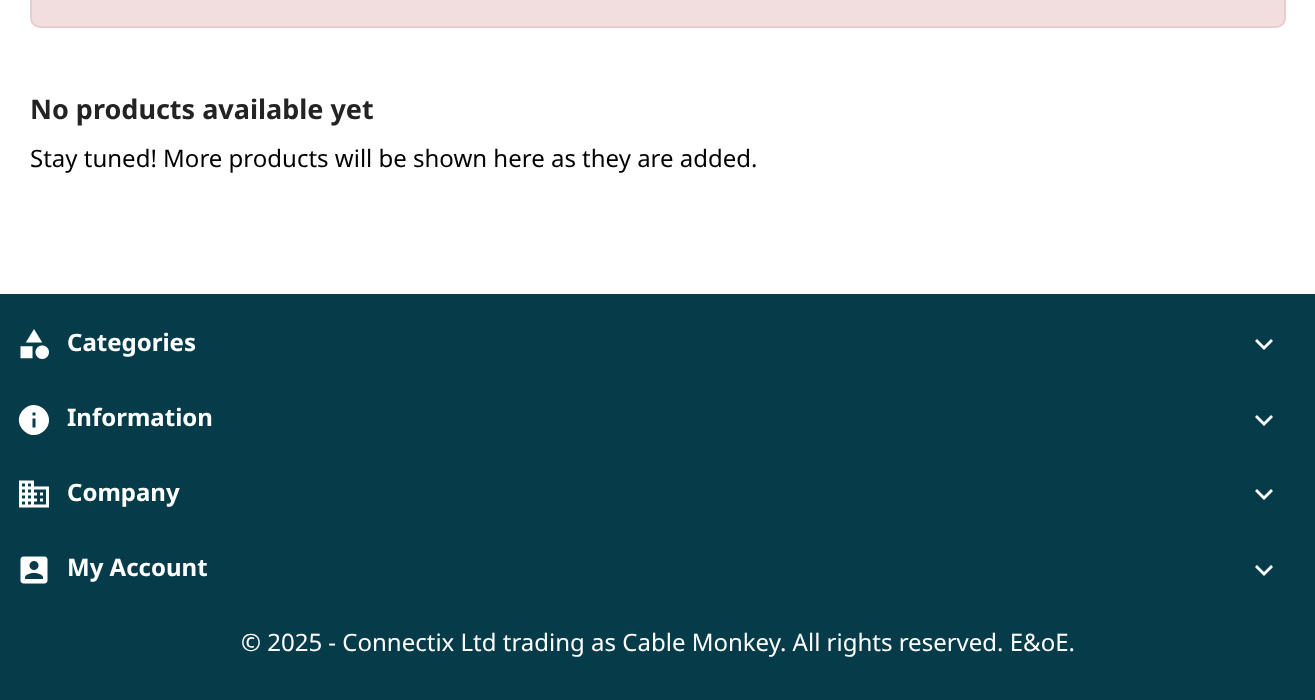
async function draw(canvas) {
  canvas.width = 1315;
  canvas.height = 700;
  const ctx = canvas.getContext('2d');
  ctx.miterLimit = 4;
  ctx.fontKerning = 'normal';
  function label(s, x, y, font, color) {
    ctx.font = font;
    ctx.fillStyle = color;
    ctx.fillText(s, x, y);
  }
  function rect(x, y, w, h, color) {
    ctx.fillStyle = color;
    ctx.fillRect(x, y, w, h);
  }
  async function image(src, x, y, w, h) {
    const img = new Image();
    img.src = src;
    await img.decode();
    ctx.drawImage(img, x, y, w, h);
  }
  let path;

  rect(0, 0, 1315, 700, '#fff');
  ctx.fillStyle = '#f2dede';
  ctx.beginPath();
  ctx.roundRect(31, -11, 1254, 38, 9);
  ctx.fill();
  ctx.strokeStyle = '#ebcccc';
  ctx.lineWidth = 2;
  ctx.stroke();
  label('No products available yet', 30, 119, 'bold 27px Noto Sans', '#232323');
  label('Stay tuned! More products will be shown here as they are added.', 30, 167, '24px Noto Sans', '#000');
  rect(0, 294, 1315, 406, '#063c4a');
  await image('assets/img1.png', 20, 329, 29, 30);
  label('Categories', 67, 351, 'bold 24px Noto Sans', '#fff');
  path = new Path2D('M1257 339L1264 346L1271 339L1273 341L1264 350L1255 341Z');
  ctx.fill(path);
  path = new Path2D('M35.5 415.5V412.5H32.5V415.5ZM35.5 427.5V418.5H32.5V427.5ZM23.5 409.5C37.5 395.5 58.5 416.5 44.5 430.5C30.5 444.5 9.5 423.5 23.5 409.5Z');
  ctx.fill(path);
  label('Information', 67, 426, 'bold 24px Noto Sans', '#fff');
  path = new Path2D('M1257 415L1264 422L1271 415L1273 417L1264 426L1255 417Z');
  ctx.fill(path);
  await image('assets/img2.png', 19, 480, 30, 28);
  label('Company', 67, 501, 'bold 24px Noto Sans', '#fff');
  path = new Path2D('M1257 489L1264 496L1271 489L1273 491L1264 500L1255 491Z');
  ctx.fill(path);
  await image('assets/img3.png', 20, 556, 28, 28);
  label('My Account', 67, 576, 'bold 24px Noto Sans', '#fff');
  path = new Path2D('M1257 565L1264 572L1271 565L1273 567L1264 576L1255 567Z');
  ctx.fill(path);
  label('© 2025 - Connectix Ltd trading as Cable Monkey. All rights reserved. E&oE.', 241, 651, '24px Noto Sans', '#fff');
}

draw(document.querySelector('canvas'));
